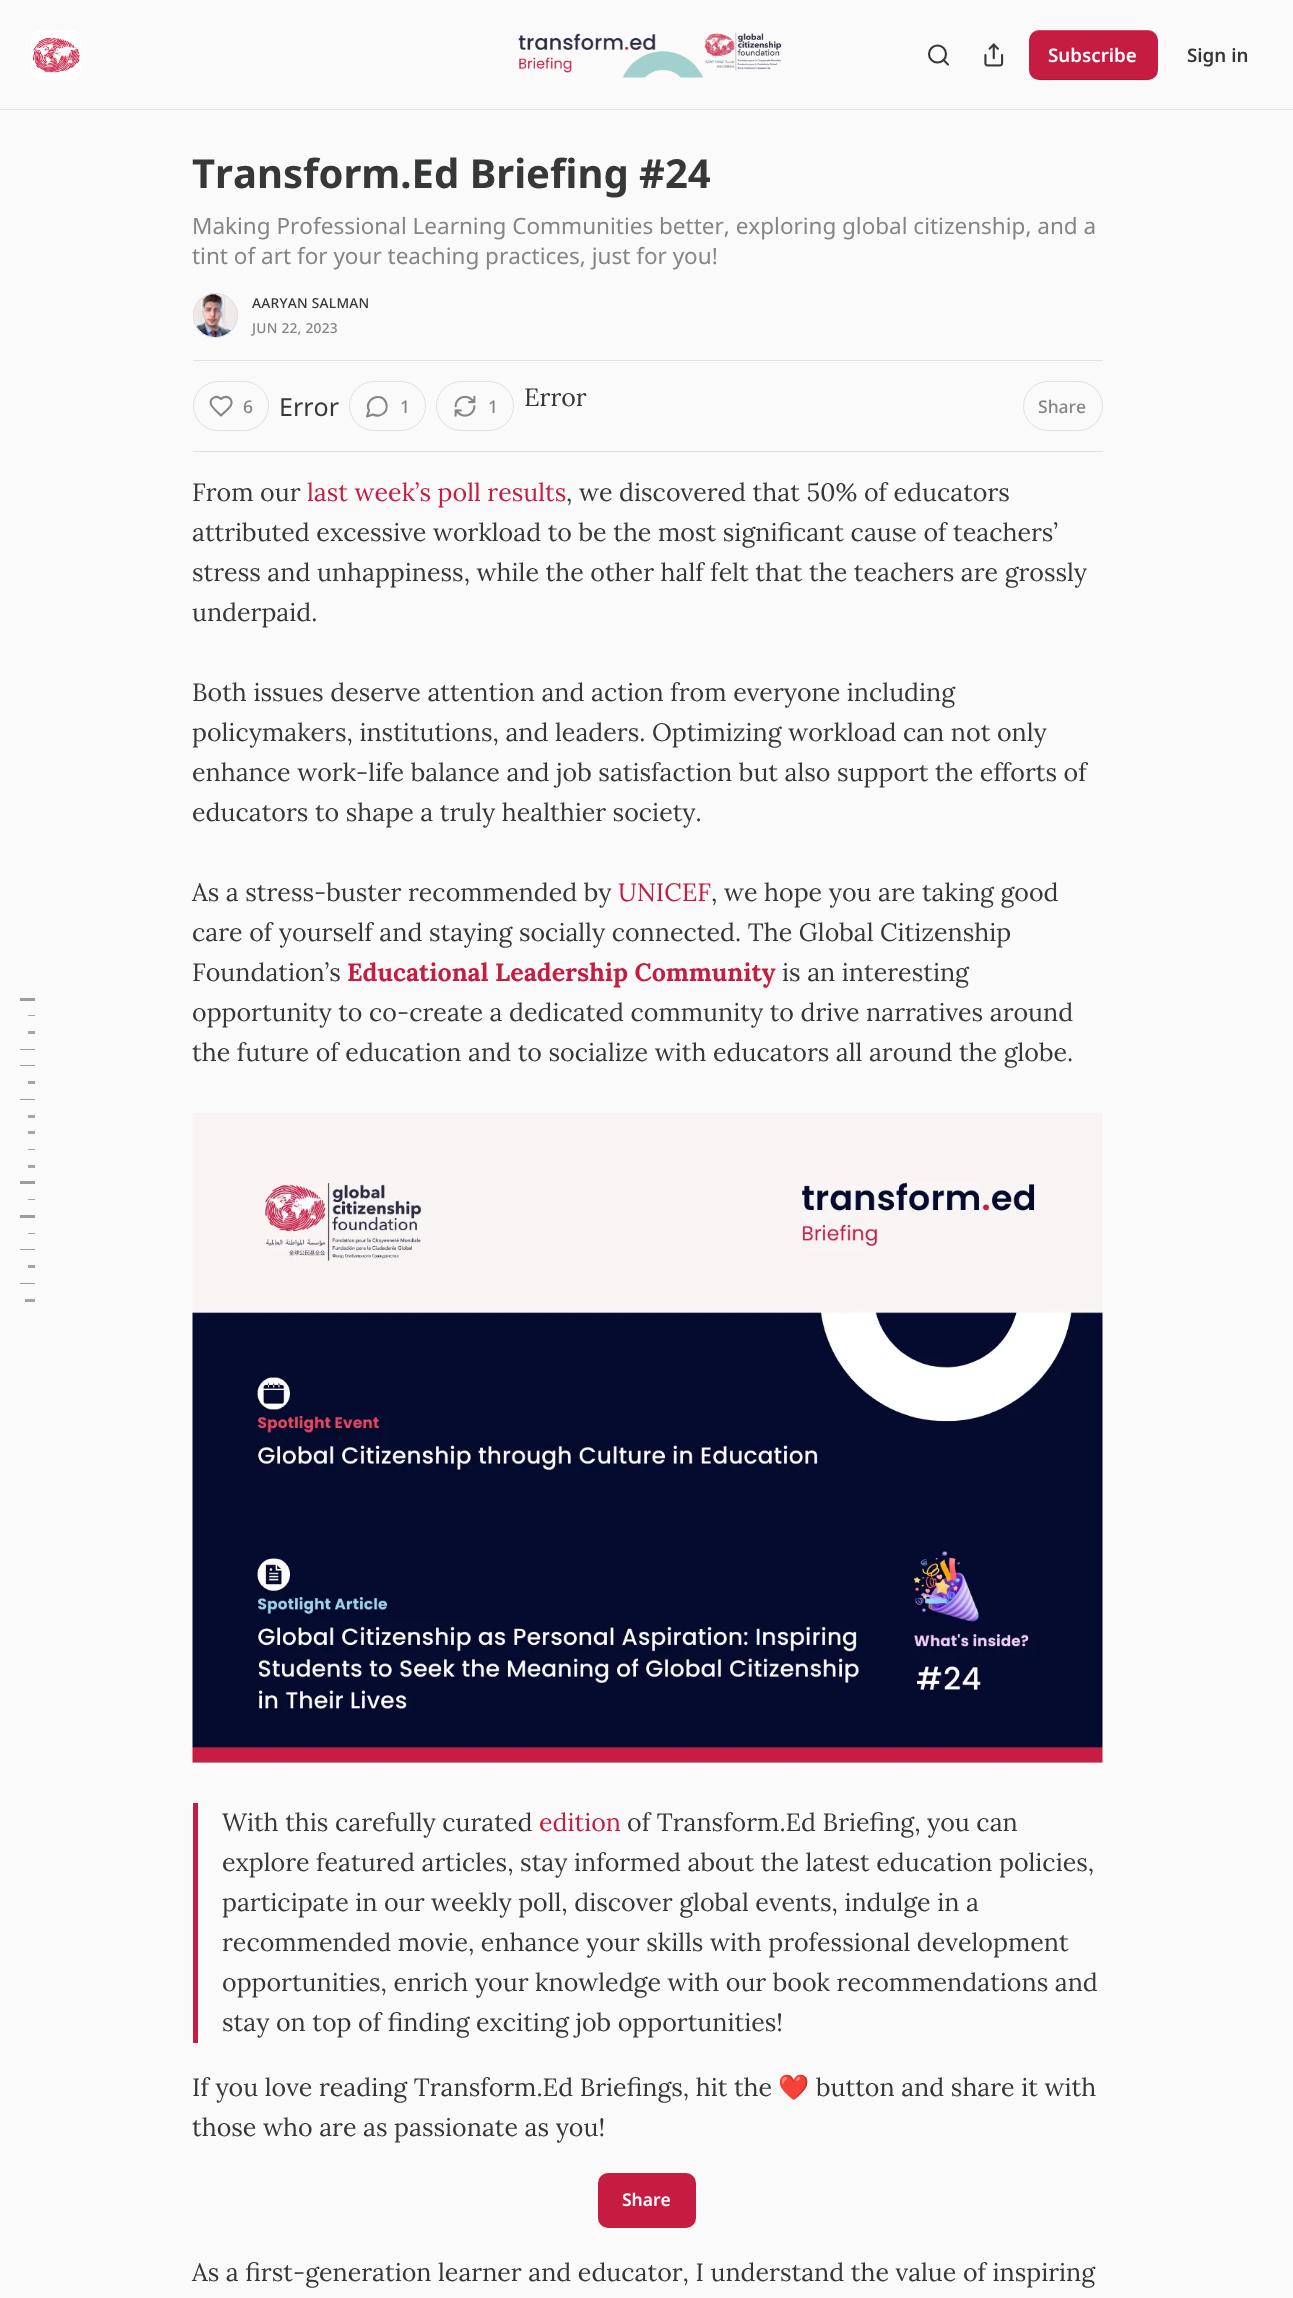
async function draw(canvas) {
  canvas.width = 1293;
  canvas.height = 2298;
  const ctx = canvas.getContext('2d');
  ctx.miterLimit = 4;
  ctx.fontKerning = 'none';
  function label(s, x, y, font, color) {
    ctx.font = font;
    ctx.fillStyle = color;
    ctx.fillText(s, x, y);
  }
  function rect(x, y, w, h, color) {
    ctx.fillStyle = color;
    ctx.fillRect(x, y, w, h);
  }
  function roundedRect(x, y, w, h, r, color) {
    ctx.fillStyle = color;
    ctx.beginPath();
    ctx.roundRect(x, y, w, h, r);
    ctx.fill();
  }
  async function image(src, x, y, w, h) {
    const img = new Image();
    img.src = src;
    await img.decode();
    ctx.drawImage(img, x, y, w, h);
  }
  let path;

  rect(0, 0, 1293, 2298, '#fafafa');
  rect(0, 109, 1293, 1, '#e1e1e1');
  roundedRect(31, 30, 50, 50, 10, '#fff');
  await image('assets/img1.png', 32, 37, 48, 36);
  await image('assets/img2.png', 518, 32, 264, 46);
  ctx.beginPath();
  ctx.arc(937.5, 54, 8.5, 0, 2 * Math.PI);
  ctx.strokeStyle = '#363737';
  ctx.lineWidth = 2.1;
  ctx.stroke();
  path = new Path2D('M948 64.5L943.5 60');
  ctx.lineCap = 'round';
  ctx.lineJoin = 'round';
  ctx.stroke(path);
  await image('assets/img3.png', 984, 43, 20, 24);
  roundedRect(1029, 30, 129, 50, 10, '#c71c41');
  ctx.fillStyle = '#0000001a';
  path = new Path2D('M1029 69C1029 84 1047 80 1057 80H1130C1140 80 1158 84 1158 69C1158 74 1153 79 1148 79H1039C1033 79 1029 74 1029 69Z');
  ctx.fill(path);
  ctx.fillStyle = '#ffffff33';
  path = new Path2D('M1039 31H1148C1153 31 1158 36 1158 41C1158 26 1140 30 1130 30H1057C1047 30 1029 26 1029 41C1029 36 1033 31 1039 31Z');
  ctx.fill(path);
  label('Subscribe', 1048, 62, '600 18.75px Noto Sans', '#fff');
  label('Sign in', 1187, 62, '600 18.75px Noto Sans', '#363737');
  label('Transform.Ed Briefing #24', 192, 188, 'bold 40px Noto Sans', '#363737');
  label('Making Professional Learning Communities better, exploring', 192, 234, '22.5px Noto Sans', '#848585');
  label('global citizenship, and a', 842, 234, '22.5px Noto Sans', '#848585');
  label('tint of art for your teaching practices, just for you!', 192, 264, '22.5px Noto Sans', '#848585');
  ctx.beginPath();
  ctx.arc(215.5, 315.5, 22, 0, 2 * Math.PI);
  ctx.strokeStyle = '#e1e1e1';
  ctx.lineWidth = 1;
  ctx.stroke();
  await image('assets/img4.png', 193, 293, 44, 45);
  ctx.beginPath();
  ctx.arc(215.5, 315.5, 22, 0, 2 * Math.PI);
  ctx.stroke();
  ctx.letterSpacing = '0.25px';
  label('AARYAN SALMAN', 252, 308, '500 13.75px Noto Sans', '#363737');
  label('JUN 22, 2023', 252, 333, '500 13.75px Noto Sans', '#848585');
  rect(193, 360, 910, 1, '#e1e1e1');
  rect(193, 451, 910, 1, '#e1e1e1');
  ctx.beginPath();
  ctx.roundRect(193.5, 381.5, 75, 49, 24.5);
  ctx.lineJoin = 'miter';
  ctx.stroke();
  path = new Path2D('M228.5 408.5C236.5 401 227.5 393 221 399C217 394.5 209 398 211 404.5C212 407.5 218.5 413 221 415.5Z');
  ctx.strokeStyle = '#848585';
  ctx.lineWidth = 2.1;
  ctx.lineJoin = 'round';
  ctx.stroke(path);
  ctx.letterSpacing = '0px';
  label('6', 243, 413, '500 17.5px Noto Sans', '#848585');
  label('Error', 279, 416, '25px Noto Sans', '#363737');
  ctx.beginPath();
  ctx.roundRect(349.5, 381.5, 76, 49, 24.5);
  ctx.strokeStyle = '#e1e1e1';
  ctx.lineWidth = 1;
  ctx.lineJoin = 'miter';
  ctx.stroke();
  path = new Path2D('M373 414.5C378 417 383.5 415 386 410.5C387 408 387 405 386 402.5C381 391 363.5 399.5 369 410.5L367 416.5Z');
  ctx.strokeStyle = '#848585';
  ctx.lineWidth = 2.1;
  ctx.lineJoin = 'round';
  ctx.stroke(path);
  label('1', 400, 413, '500 17.5px Noto Sans', '#848585');
  ctx.beginPath();
  ctx.roundRect(436.5, 381.5, 77, 49, 24.5);
  ctx.strokeStyle = '#e1e1e1';
  ctx.lineWidth = 1;
  ctx.lineJoin = 'miter';
  ctx.stroke();
  await image('assets/img5.png', 454, 395, 22, 22);
  label('1', 488, 413, '500 17.5px Noto Sans', '#848585');
  label('Error', 524, 406, '25px Lora', '#363737');
  ctx.beginPath();
  ctx.roundRect(1023.5, 381.5, 79, 49, 24.5);
  ctx.stroke();
  label('Share', 1038, 413, '500 17.5px Noto Sans', '#848585');
  rect(20, 998, 15, 3, '#9c9c9c');
  rect(28, 1015, 7, 1, '#a5a5a5');
  rect(28, 1031, 7, 3, '#a5a5a5');
  rect(20, 1049, 15, 1, '#9c9c9c');
  rect(20, 1065, 15, 1, '#9c9c9c');
  rect(28, 1081, 7, 3, '#a5a5a5');
  rect(20, 1099, 15, 1, '#9c9c9c');
  rect(28, 1115, 7, 3, '#a5a5a5');
  rect(28, 1131, 7, 3, '#a5a5a5');
  rect(28, 1149, 7, 1, '#a5a5a5');
  rect(28, 1165, 7, 3, '#a5a5a5');
  rect(20, 1181, 15, 3, '#9c9c9c');
  rect(28, 1199, 7, 1, '#a5a5a5');
  rect(20, 1215, 15, 3, '#9c9c9c');
  rect(28, 1233, 7, 1, '#a5a5a5');
  rect(20, 1249, 15, 1, '#9c9c9c');
  rect(28, 1265, 7, 3, '#a5a5a5');
  rect(20, 1283, 15, 1, '#9c9c9c');
  rect(25, 1299, 10, 3, '#a5a5a5');
  label('From our', 192, 501, '25px Lora', '#363737');
  label('last week’s poll results', 307, 501, '25px Lora', '#c71c41');
  label(', we discovered that 50% of educators', 566, 501, '25px Lora', '#363737');
  label('attributed excessive workload to be the most significant cause of teachers’', 192, 541, '25px Lora', '#363737');
  label('stress and unhappiness, while the other half felt that the teachers are grossly', 192, 581, '25px Lora', '#363737');
  label('underpaid.', 192, 621, '25px Lora', '#363737');
  label('Both issues deserve attention and action from everyone including', 192, 701, '25px Lora', '#363737');
  label('policymakers, institutions, and leaders. Optimizing workload can not only', 192, 741, '25px Lora', '#363737');
  label('enhance work-life balance and job satisfaction but also support the efforts of', 192, 781, '25px Lora', '#363737');
  label('educators to shape a truly healthier society.', 192, 821, '25px Lora', '#363737');
  label('As a stress-buster recommended by', 192, 901, '25px Lora', '#363737');
  label('UNICEF', 618, 901, '25px Lora', '#c71c41');
  label(', we hope you are taking good', 711, 901, '25px Lora', '#363737');
  label('care of yourself and staying socially connected. The Global Citizenship', 192, 941, '25px Lora', '#363737');
  label('Foundation’s', 192, 981, '25px Lora', '#363737');
  label('Educational Leadership Community', 347, 981, 'bold 25px Lora', '#c71c41');
  label('is an interesting', 782, 981, '25px Lora', '#363737');
  label('opportunity to co-create a dedicated community to drive narratives around', 192, 1021, '25px Lora', '#363737');
  label('the future of education and to socialize with educators all around the globe.', 192, 1061, '25px Lora', '#363737');
  await image('assets/img6.png', 192, 1113, 911, 650);
  rect(193, 1803, 5, 240, '#c71c41');
  label('With this carefully curated', 222, 1831, '25px Lora', '#363737');
  label('edition', 539, 1831, '25px Lora', '#c71c41');
  label('of Transform.Ed Briefing, you can', 627, 1831, '25px Lora', '#363737');
  label('explore featured articles, stay informed about the latest education policies,', 222, 1871, '25px Lora', '#363737');
  label('participate in our weekly poll, discover global events, indulge in a', 222, 1911, '25px Lora', '#363737');
  label('recommended movie, enhance your skills with professional development', 222, 1951, '25px Lora', '#363737');
  label('opportunities, enrich your knowledge with our book recommendations and', 222, 1991, '25px Lora', '#363737');
  label('stay on top of finding exciting job opportunities!', 222, 2031, '25px Lora', '#363737');
  label('If you love reading Transform.Ed Briefings, hit the', 192, 2096, '25px Lora', '#363737');
  label('❤️', 778, 2096, '25px Noto Color Emoji', '#363737');
  label('button and share it with', 816, 2096, '25px Lora', '#363737');
  label('those who are as passionate as you!', 192, 2136, '25px Lora', '#363737');
  roundedRect(598, 2173, 98, 55, 10, '#c71c41');
  label('Share', 622, 2206, '600 17.5px Noto Sans', '#fff');
  label('As a first-generation learner and educator, I understand the value of inspiring', 192, 2281, '25px Lora', '#363737');
}

draw(document.querySelector('canvas'));
